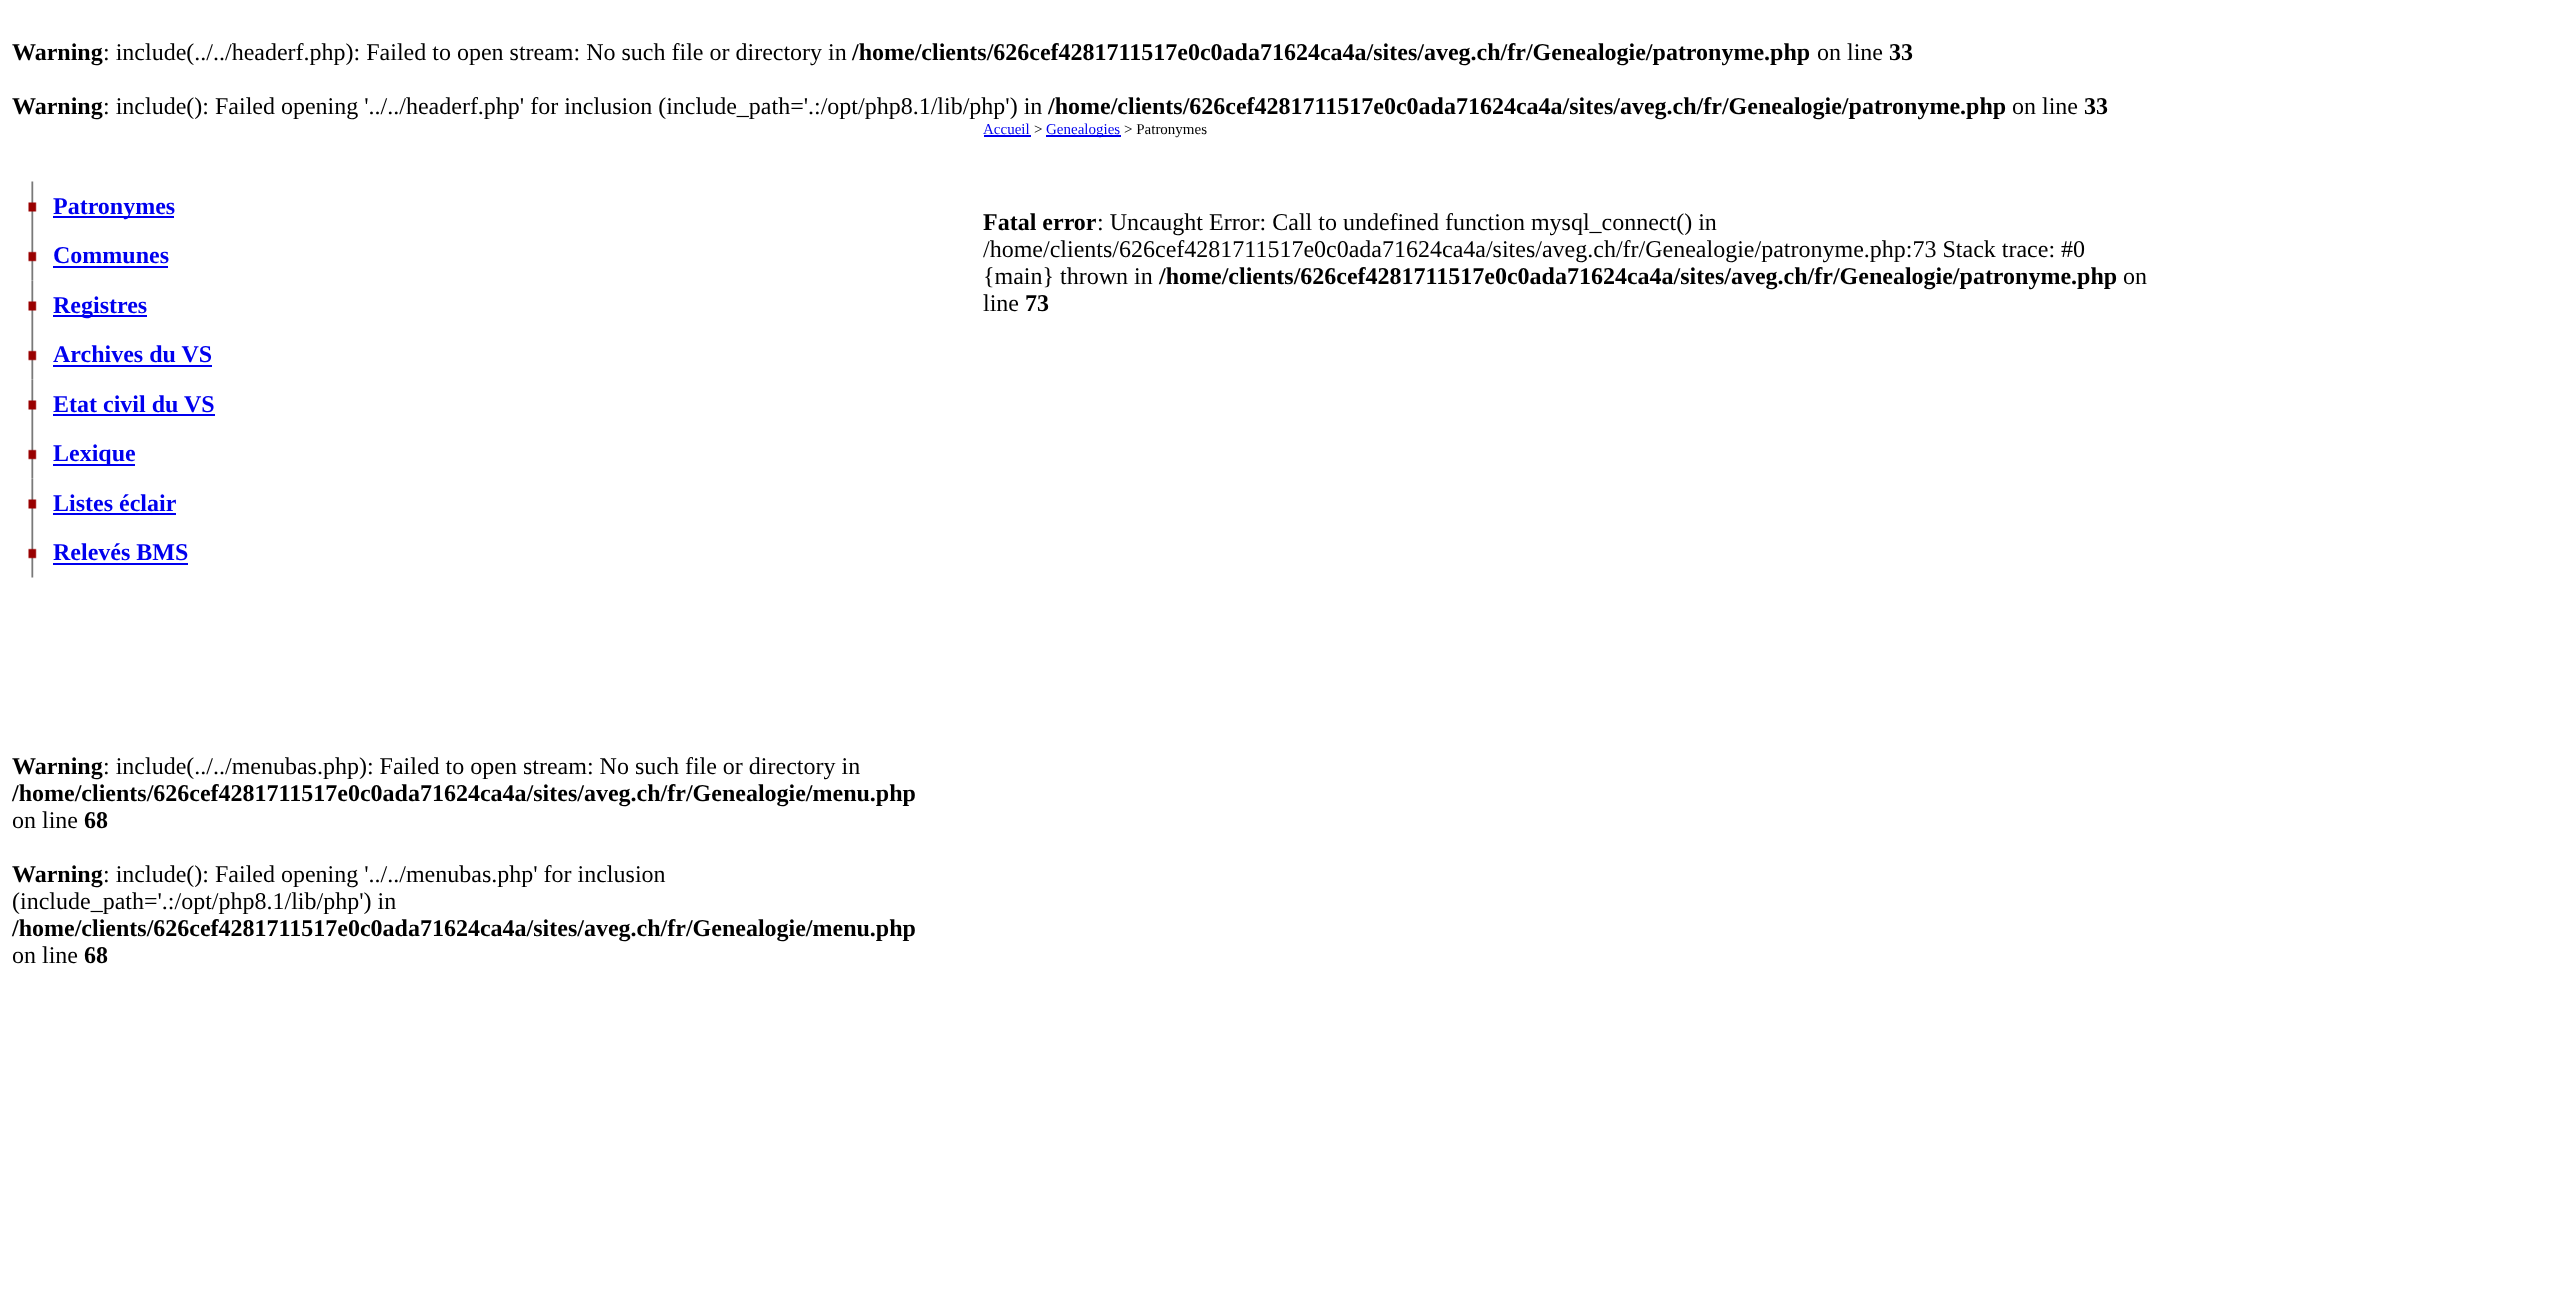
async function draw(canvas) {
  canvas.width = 2572;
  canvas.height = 1304;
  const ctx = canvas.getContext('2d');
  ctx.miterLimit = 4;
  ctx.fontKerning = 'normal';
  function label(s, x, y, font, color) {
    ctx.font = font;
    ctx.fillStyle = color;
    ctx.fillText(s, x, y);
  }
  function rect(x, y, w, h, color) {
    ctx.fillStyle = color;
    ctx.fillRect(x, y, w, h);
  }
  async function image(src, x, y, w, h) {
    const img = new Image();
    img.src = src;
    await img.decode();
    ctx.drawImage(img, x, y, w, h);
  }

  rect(0, 0, 2572, 1304, '#fff');
  label('Warning', 12, 60, 'bold 24px Liberation Serif', '#000');
  label(': include(../../headerf.php): Failed to open stream: No such file or directory in', 103, 60, '24px Liberation Serif', '#000');
  label('/home/clients/626cef4281711517e0c0ada71624ca4a/sites/aveg.ch/fr/Genealogie/patronyme.php', 852, 60, 'bold 24px Liberation Serif', '#000');
  label('on line', 1817, 60, '24px Liberation Serif', '#000');
  label('33', 1889, 60, 'bold 24px Liberation Serif', '#000');
  label('Warning', 12, 114, 'bold 24px Liberation Serif', '#000');
  label(': include(): Failed opening \'../../headerf.php\' for inclusion (include_path=\'.:/opt/php8.1/lib/php\') in', 103, 114, '24px Liberation Serif', '#000');
  label('/home/clients/626cef4281711517e0c0ada71624ca4a/sites/aveg.ch/fr/Genealogie/patronyme.php', 1048, 114, 'bold 24px Liberation Serif', '#000');
  label('on line', 2012, 114, '24px Liberation Serif', '#000');
  label('33', 2084, 114, 'bold 24px Liberation Serif', '#000');
  label('Accueil', 983, 134, '15px Liberation Serif', '#00e');
  rect(984, 135, 47, 2, '#00e');
  label('>', 1034, 134, '15px Liberation Serif', '#000');
  rect(1046, 135, 75, 2, '#00e');
  label('Genealogies', 1046, 134, '15px Liberation Serif', '#00e');
  label('> Patronymes', 1124, 134, '15px Liberation Serif', '#000');
  await image('assets/img1.png', 28, 181, 9, 50);
  rect(53, 216, 121, 2, '#00e');
  label('Patronymes', 53, 214, 'bold 24px Liberation Serif', '#00e');
  await image('assets/img2.png', 28, 231, 9, 50);
  label('Communes', 53, 263, 'bold 24px Liberation Serif', '#00e');
  rect(53, 266, 115, 2, '#00e');
  await image('assets/img3.png', 28, 280, 9, 50);
  rect(53, 315, 94, 2, '#00e');
  label('Registres', 53, 313, 'bold 24px Liberation Serif', '#00e');
  await image('assets/img2.png', 28, 330, 9, 50);
  label('Archives du VS', 53, 362, 'bold 24px Liberation Serif', '#00e');
  rect(53, 365, 159, 2, '#00e');
  await image('assets/img3.png', 28, 379, 9, 50);
  label('Etat civil du VS', 53, 412, 'bold 24px Liberation Serif', '#00e');
  rect(53, 414, 162, 2, '#00e');
  await image('assets/img2.png', 28, 429, 9, 50);
  rect(53, 464, 82, 2, '#00e');
  label('Lexique', 53, 461, 'bold 24px Liberation Serif', '#00e');
  await image('assets/img3.png', 28, 478, 9, 50);
  label('Listes éclair', 53, 511, 'bold 24px Liberation Serif', '#00e');
  rect(53, 513, 123, 2, '#00e');
  await image('assets/img2.png', 28, 528, 9, 50);
  label('Relevés BMS', 53, 560, 'bold 24px Liberation Serif', '#00e');
  rect(53, 563, 135, 2, '#00e');
  label('Warning', 12, 774, 'bold 24px Liberation Serif', '#000');
  label(': include(../../menubas.php): Failed to open stream: No such file or directory in', 103, 774, '24px Liberation Serif', '#000');
  label('/home/clients/626cef4281711517e0c0ada71624ca4a/sites/aveg.ch/fr/Genealogie/menu.php', 12, 801, 'bold 24px Liberation Serif', '#000');
  label('on line', 12, 828, '24px Liberation Serif', '#000');
  label('68', 84, 828, 'bold 24px Liberation Serif', '#000');
  label('Warning', 12, 882, 'bold 24px Liberation Serif', '#000');
  label(': include(): Failed opening \'../../menubas.php\' for inclusion', 103, 882, '24px Liberation Serif', '#000');
  label('(include_path=\'.:/opt/php8.1/lib/php\') in', 12, 909, '24px Liberation Serif', '#000');
  label('/home/clients/626cef4281711517e0c0ada71624ca4a/sites/aveg.ch/fr/Genealogie/menu.php', 12, 936, 'bold 24px Liberation Serif', '#000');
  label('on line', 12, 963, '24px Liberation Serif', '#000');
  label('68', 84, 963, 'bold 24px Liberation Serif', '#000');
  label('Fatal error', 983, 230, 'bold 24px Liberation Serif', '#000');
  label(': Uncaught Error: Call to undefined function mysql_connect() in', 1097, 230, '24px Liberation Serif', '#000');
  label('/home/clients/626cef4281711517e0c0ada71624ca4a/sites/aveg.ch/fr/Genealogie/patronyme.php:73 Stack trace: #0', 983, 257, '24px Liberation Serif', '#000');
  label('{main} thrown in', 983, 284, '24px Liberation Serif', '#000');
  label('/home/clients/626cef4281711517e0c0ada71624ca4a/sites/aveg.ch/fr/Genealogie/patronyme.php', 1159, 284, 'bold 24px Liberation Serif', '#000');
  label('on', 2123, 284, '24px Liberation Serif', '#000');
  label('line', 983, 311, '24px Liberation Serif', '#000');
  label('73', 1025, 311, 'bold 24px Liberation Serif', '#000');
}

draw(document.querySelector('canvas'));
